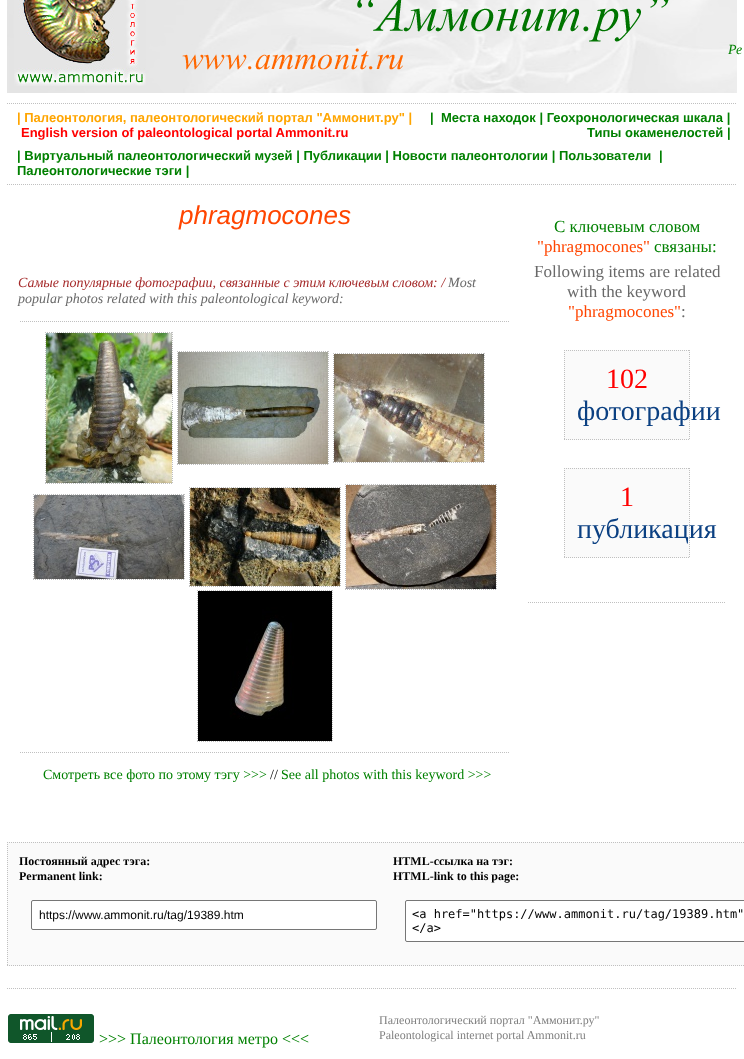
async function draw(canvas) {
  canvas.width = 744;
  canvas.height = 1059;
  const ctx = canvas.getContext('2d');
  ctx.miterLimit = 4;
  ctx.fontKerning = 'normal';
  function label(s, x, y, font, color) {
    ctx.font = font;
    ctx.fillStyle = color;
    ctx.fillText(s, x, y);
  }
  function rect(x, y, w, h, color) {
    ctx.fillStyle = color;
    ctx.fillRect(x, y, w, h);
  }
  async function image(src, x, y, w, h) {
    const img = new Image();
    img.src = src;
    await img.decode();
    ctx.drawImage(img, x, y, w, h);
  }
  let path;

  rect(0, 0, 744, 1059, '#fff');
  await image('assets/img1.png', 7, 0, 730, 93);
  await image('assets/img2.png', 14, 0, 132, 86);
  await image('assets/img3.png', 182, 0, 487, 70);
  label('Ре', 728, 54, 'italic 14px Liberation Serif', '#008000');
  path = new Path2D('M7 103.5H737');
  ctx.strokeStyle = '#c0c0c0';
  ctx.setLineDash([1, 1]);
  ctx.stroke(path);
  path = new Path2D('M7 184.5H737');
  ctx.stroke(path);
  label('| Палеонтология, палеонтологический портал "Аммонит.ру" |', 17, 122, 'bold 13px Liberation Sans', '#ffa500');
  label('|', 430, 122, 'bold 13px Liberation Sans', '#008000');
  label('Места находок | Геохронологическая шкала |', 441, 122, 'bold 13px Liberation Sans', '#008000');
  label('English version of paleontological portal Ammonit.ru', 21, 137, 'bold 13px Liberation Sans', '#f00');
  label('Типы окаменелостей |', 587, 137, 'bold 13px Liberation Sans', '#008000');
  label('| Виртуальный палеонтологический музей | Публикации | Новости палеонтологии | Пользователи', 17, 160, 'bold 13px Liberation Sans', '#008000');
  label('|', 659, 160, 'bold 13px Liberation Sans', '#008000');
  label('Палеонтологические тэги |', 17, 175, 'bold 13px Liberation Sans', '#008000');
  label('phragmocones', 179, 224, 'italic 26px Liberation Sans', '#ff4500');
  label('Самые популярные фотографии, связанные с этим ключевым словом: /', 18, 287, 'italic 14px Liberation Serif', '#a52a2a');
  label('Most', 448, 287, 'italic 14px Liberation Serif', '#696969');
  label('popular photos related with this paleontological keyword:', 18, 303, 'italic 14px Liberation Serif', '#696969');
  path = new Path2D('M20 321.5H509');
  ctx.stroke(path);
  path = new Path2D('M20 752.5H509');
  ctx.stroke(path);
  path = new Path2D('M45 332.5H173');
  ctx.stroke(path);
  path = new Path2D('M45.5 332V484');
  ctx.stroke(path);
  await image('assets/img4.png', 46, 333, 126, 150);
  path = new Path2D('M172.5 332V484');
  ctx.stroke(path);
  path = new Path2D('M177 351.5H329');
  ctx.stroke(path);
  path = new Path2D('M177.5 351V465');
  ctx.stroke(path);
  await image('assets/img5.png', 178, 352, 150, 112);
  path = new Path2D('M328.5 351V465');
  ctx.stroke(path);
  path = new Path2D('M333 353.5H485');
  ctx.stroke(path);
  path = new Path2D('M333.5 353V463');
  ctx.stroke(path);
  await image('assets/img6.png', 334, 354, 150, 108);
  path = new Path2D('M484.5 353V463');
  ctx.stroke(path);
  path = new Path2D('M333 462.5H485');
  ctx.stroke(path);
  path = new Path2D('M177 464.5H329');
  ctx.stroke(path);
  path = new Path2D('M45 483.5H173');
  ctx.stroke(path);
  path = new Path2D('M345 484.5H497');
  ctx.stroke(path);
  path = new Path2D('M189 487.5H341');
  ctx.stroke(path);
  path = new Path2D('M345.5 484V590');
  ctx.stroke(path);
  await image('assets/img7.png', 346, 485, 150, 104);
  path = new Path2D('M496.5 484V590');
  ctx.stroke(path);
  path = new Path2D('M33 494.5H185');
  ctx.stroke(path);
  path = new Path2D('M189.5 487V587');
  ctx.stroke(path);
  await image('assets/img8.png', 190, 488, 150, 98);
  path = new Path2D('M340.5 487V587');
  ctx.stroke(path);
  path = new Path2D('M33.5 494V580');
  ctx.stroke(path);
  await image('assets/img9.png', 34, 495, 150, 84);
  path = new Path2D('M184.5 494V580');
  ctx.stroke(path);
  path = new Path2D('M33 579.5H185');
  ctx.stroke(path);
  path = new Path2D('M189 586.5H341');
  ctx.stroke(path);
  path = new Path2D('M345 589.5H497');
  ctx.stroke(path);
  path = new Path2D('M197 590.5H333');
  ctx.stroke(path);
  path = new Path2D('M197.5 590V742');
  ctx.stroke(path);
  await image('assets/img10.png', 198, 591, 134, 150);
  path = new Path2D('M332.5 590V742');
  ctx.stroke(path);
  path = new Path2D('M197 741.5H333');
  ctx.stroke(path);
  label('Смотреть все фото по этому тэгу >>>', 43, 779, '14px Liberation Serif', '#008000');
  label('//', 270, 779, '14px Liberation Serif', '#000');
  label('See all photos with this keyword >>>', 281, 779, '14px Liberation Serif', '#008000');
  path = new Path2D('M528 602.5H726');
  ctx.stroke(path);
  label('С ключевым словом', 554, 232, '17px Liberation Serif', '#008000');
  label('"phragmocones"', 537, 252, '17px Liberation Serif', '#ff4500');
  label('связаны:', 654, 252, '17px Liberation Serif', '#008000');
  label('Following items are related', 534, 277, '17px Liberation Serif', '#696969');
  label('with the keyword', 567, 297, '17px Liberation Serif', '#696969');
  label('"phragmocones"', 568, 317, '17px Liberation Serif', '#ff4500');
  label(':', 681, 317, '17px Liberation Serif', '#696969');
  rect(564, 350, 126, 90, '#fafafa');
  path = new Path2D('M564 350.5H690');
  ctx.stroke(path);
  path = new Path2D('M689.5 350V440');
  ctx.stroke(path);
  path = new Path2D('M564 439.5H690');
  ctx.stroke(path);
  path = new Path2D('M564.5 350V440');
  ctx.stroke(path);
  label('102', 606, 388, '28px Liberation Serif', '#f00');
  label('фотографии', 577, 420, '28px Liberation Serif', '#0b4082');
  rect(564, 468, 126, 90, '#fafafa');
  path = new Path2D('M564 468.5H690');
  ctx.stroke(path);
  path = new Path2D('M689.5 468V558');
  ctx.stroke(path);
  path = new Path2D('M564 557.5H690');
  ctx.stroke(path);
  path = new Path2D('M564.5 468V558');
  ctx.stroke(path);
  label('1', 620, 506, '28px Liberation Serif', '#f00');
  label('публикация', 577, 538, '28px Liberation Serif', '#0b4082');
  rect(7, 842, 737, 124, '#fafafa');
  path = new Path2D('M7 842.5H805');
  ctx.stroke(path);
  path = new Path2D('M7 965.5H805');
  ctx.stroke(path);
  path = new Path2D('M7.5 842V966');
  ctx.stroke(path);
  label('Постоянный адрес тэга:', 19, 865, 'bold 12px Liberation Serif', '#000');
  label('Permanent link:', 19, 880, 'bold 12px Liberation Serif', '#000');
  label('HTML-ссылка на тэг:', 393, 865, 'bold 12px Liberation Serif', '#000');
  label('HTML-link to this page:', 393, 880, 'bold 12px Liberation Serif', '#000');
  ctx.fillStyle = '#fff';
  ctx.beginPath();
  ctx.roundRect(31.5, 900.5, 345, 29, 1.5);
  ctx.fill();
  ctx.strokeStyle = '#767676';
  ctx.setLineDash([]);
  ctx.stroke();
  label('https://www.ammonit.ru/tag/19389.htm', 39, 919, '12px Liberation Sans', '#000');
  ctx.fillStyle = '#fff';
  ctx.beginPath();
  ctx.roundRect(405.5, 900.5, 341, 41, 1.5);
  ctx.fill();
  ctx.stroke();
  label('<a href="https://www.ammonit.ru/tag/19389.htm"', 412, 918, '12px DejaVu Sans Mono', '#000');
  label('<\/a>', 412, 932, '12px DejaVu Sans Mono', '#000');
  path = new Path2D('M7 988.5H737');
  ctx.strokeStyle = '#c0c0c0';
  ctx.setLineDash([1, 1]);
  ctx.stroke(path);
  await image('assets/img11.png', 8, 1014, 86, 29);
  label('>>> Палеонтология метро <<<', 99, 1044, '16px Liberation Serif', '#008000');
  label('Палеонтологический портал "Аммонит.ру"', 379, 1024, '12px Liberation Serif', '#808080');
  label('Paleontological internet portal Ammonit.ru', 379, 1039, '12px Liberation Serif', '#808080');
}

draw(document.querySelector('canvas'));
